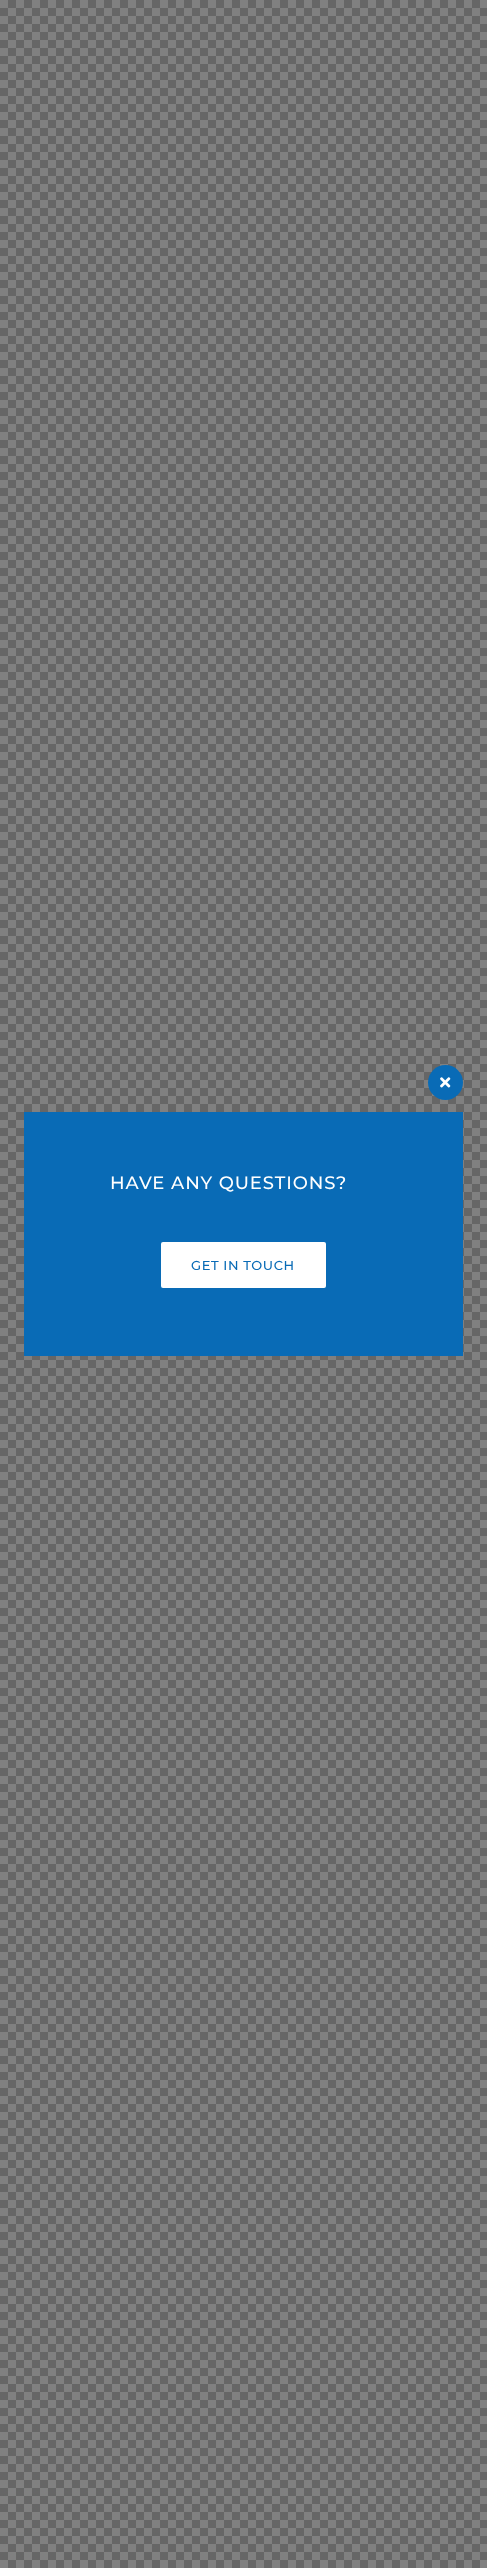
async function draw(canvas) {
  canvas.width = 487;
  canvas.height = 2568;
  const ctx = canvas.getContext('2d');
  ctx.miterLimit = 4;
  ctx.fontKerning = 'normal';
  function label(s, x, y, font, color) {
    ctx.font = font;
    ctx.fillStyle = color;
    ctx.fillText(s, x, y);
  }
  function rect(x, y, w, h, color) {
    ctx.fillStyle = color;
    ctx.fillRect(x, y, w, h);
  }
  function roundedRect(x, y, w, h, r, color) {
    ctx.fillStyle = color;
    ctx.beginPath();
    ctx.roundRect(x, y, w, h, r);
    ctx.fill();
  }
  async function image(src, x, y, w, h) {
    const img = new Image();
    img.src = src;
    await img.decode();
    ctx.drawImage(img, x, y, w, h);
  }

  rect(0, 0, 487, 2568, '#fff');
  await image('assets/img1.png', 0, 0, 487, 2568);
  ctx.fillStyle = '#096bb6';
  ctx.beginPath();
  ctx.arc(445.5, 1082.5, 17.5, 0, 2 * Math.PI);
  ctx.fill();
  await image('assets/img2.png', 440, 1077, 11, 11);
  rect(24, 1112, 439, 244, '#096bb6');
  ctx.letterSpacing = '0.9px';
  label('HAVE ANY QUESTIONS?', 110, 1189, '500 18px Montserrat', '#fff');
  roundedRect(161, 1242, 165, 46, 2, '#fff');
  ctx.letterSpacing = '0.6px';
  label('GET IN TOUCH', 191, 1270, '500 13px Montserrat', '#096bb6');
}

draw(document.querySelector('canvas'));
